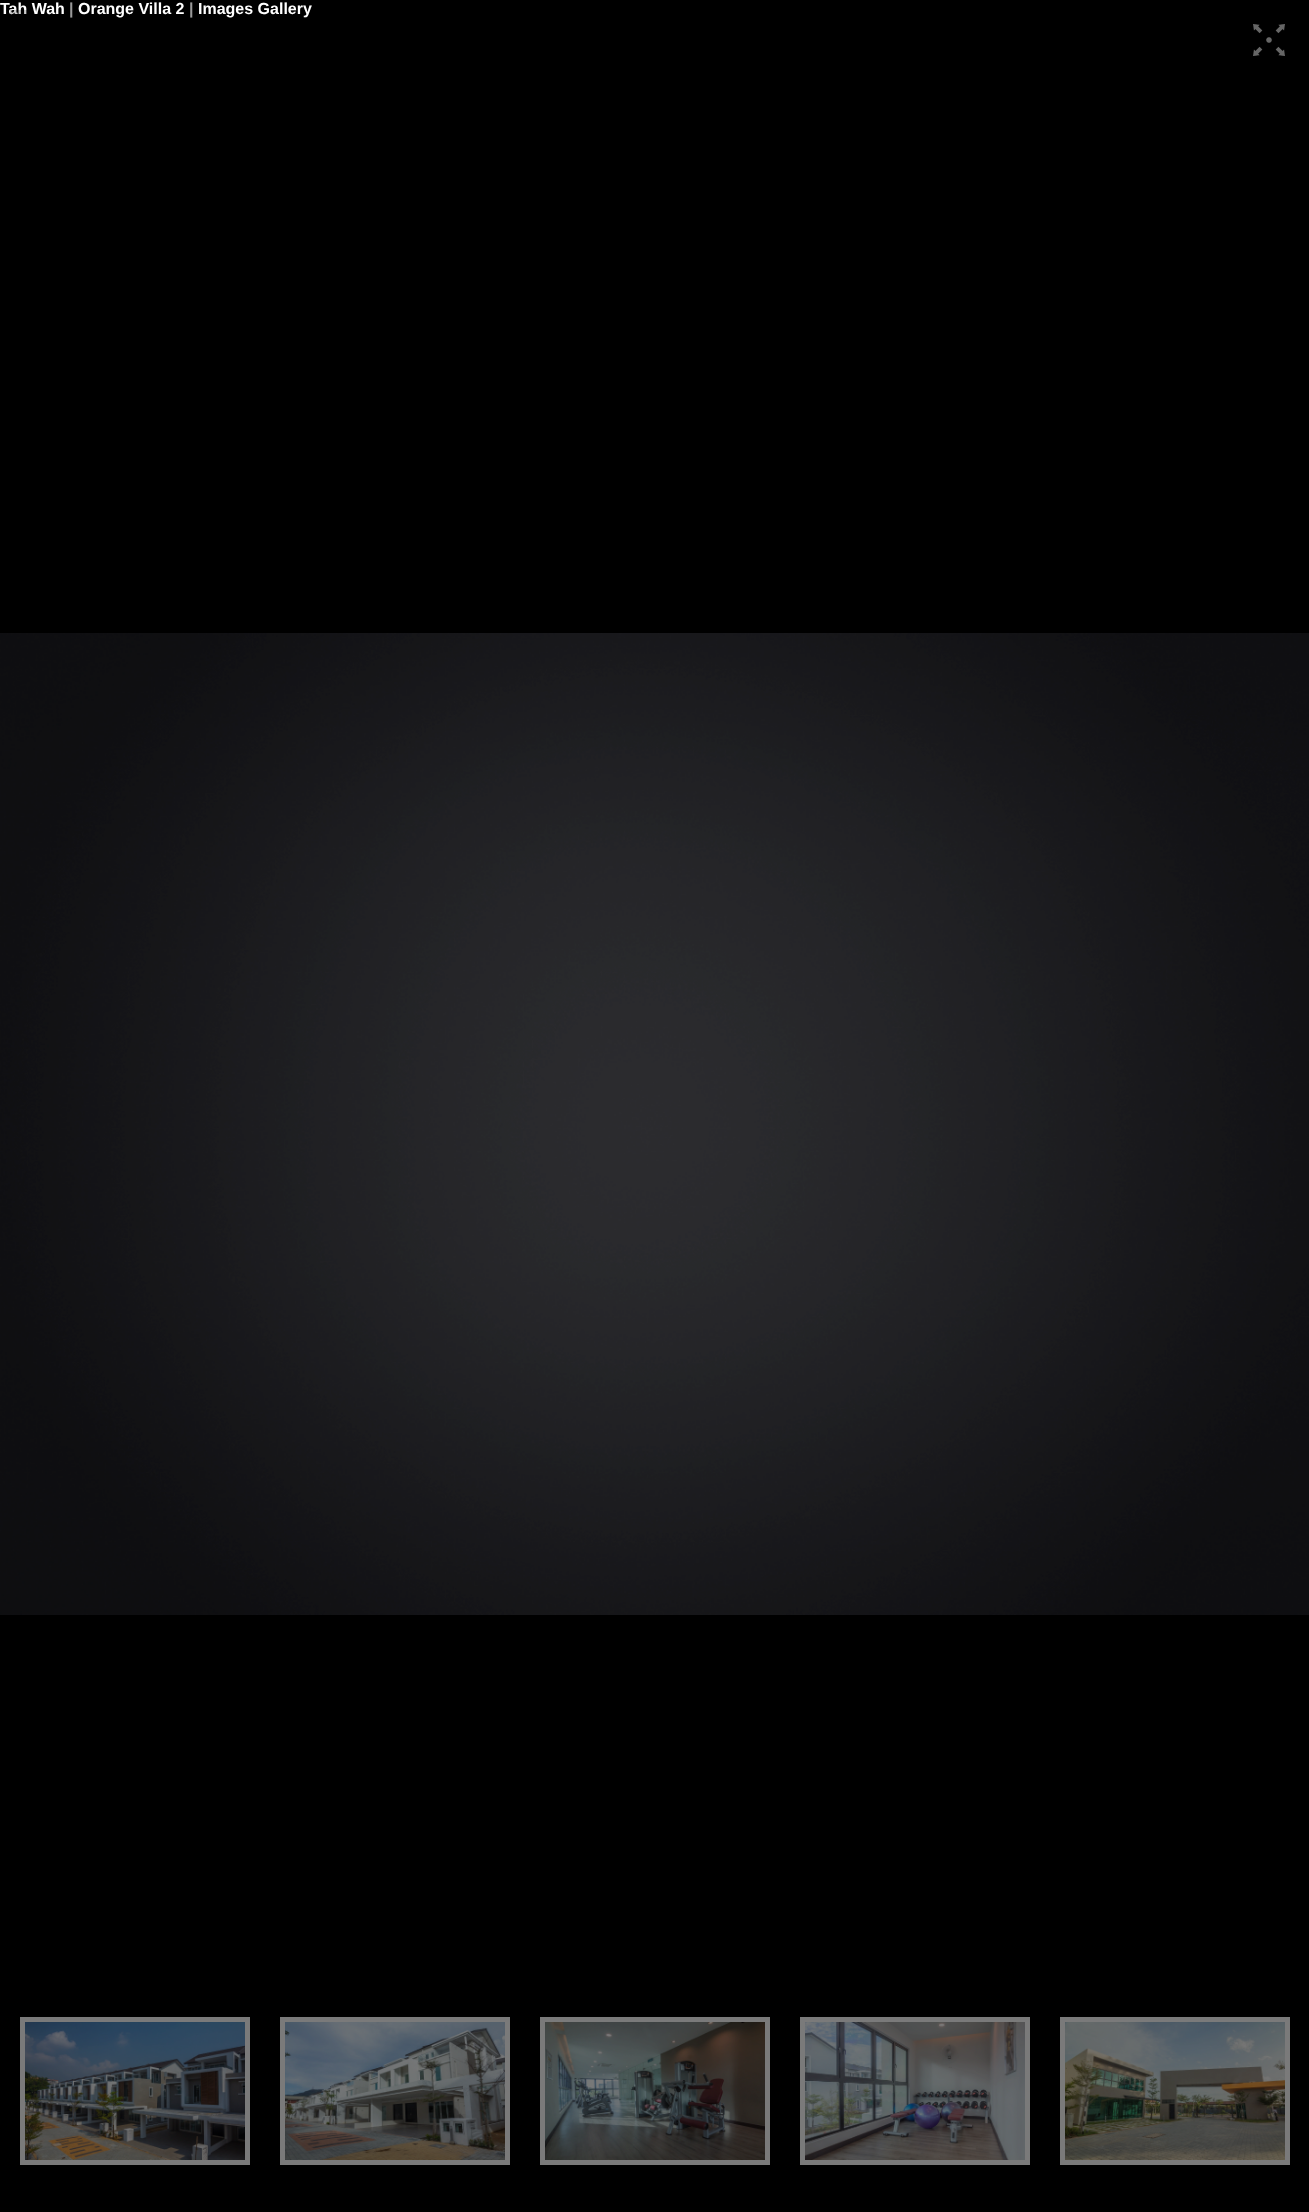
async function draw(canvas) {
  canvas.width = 1309;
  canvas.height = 2212;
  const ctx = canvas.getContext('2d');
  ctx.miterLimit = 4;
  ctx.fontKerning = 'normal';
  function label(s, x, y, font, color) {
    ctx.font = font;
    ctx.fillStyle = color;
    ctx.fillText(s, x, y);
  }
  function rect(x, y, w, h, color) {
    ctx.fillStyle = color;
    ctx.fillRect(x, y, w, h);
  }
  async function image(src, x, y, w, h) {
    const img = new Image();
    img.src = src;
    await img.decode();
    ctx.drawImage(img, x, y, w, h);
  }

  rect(0, 0, 1309, 2212, '#000');
  label('Tah Wah', 0, 14, 'bold 16px Liberation Sans', '#fff');
  label('|', 69, 14, 'bold 16px Liberation Sans', '#999');
  label('Orange Villa 2', 78, 14, 'bold 16px Liberation Sans', '#fff');
  label('|', 189, 14, 'bold 16px Liberation Sans', '#999');
  label('Images Gallery', 198, 14, 'bold 16px Liberation Sans', '#fff');
  rect(10, 10, 17, 5, '#00000033');
  await image('assets/img1.png', 1253, 24, 32, 32);
  await image('assets/img2.png', 0, 633, 1309, 982);
  ctx.strokeStyle = '#7a7a7a';
  ctx.lineWidth = 5;
  ctx.strokeRect(22.5, 2019.5, 225, 143);
  await image('assets/img3.png', 25, 2022, 220, 138);
  ctx.strokeRect(282.5, 2019.5, 225, 143);
  await image('assets/img4.png', 285, 2022, 220, 138);
  ctx.strokeRect(542.5, 2019.5, 225, 143);
  await image('assets/img5.png', 545, 2022, 220, 138);
  ctx.strokeRect(802.5, 2019.5, 225, 143);
  await image('assets/img6.png', 805, 2022, 220, 138);
  ctx.strokeRect(1062.5, 2019.5, 225, 143);
  await image('assets/img7.png', 1065, 2022, 220, 138);
}

draw(document.querySelector('canvas'));
